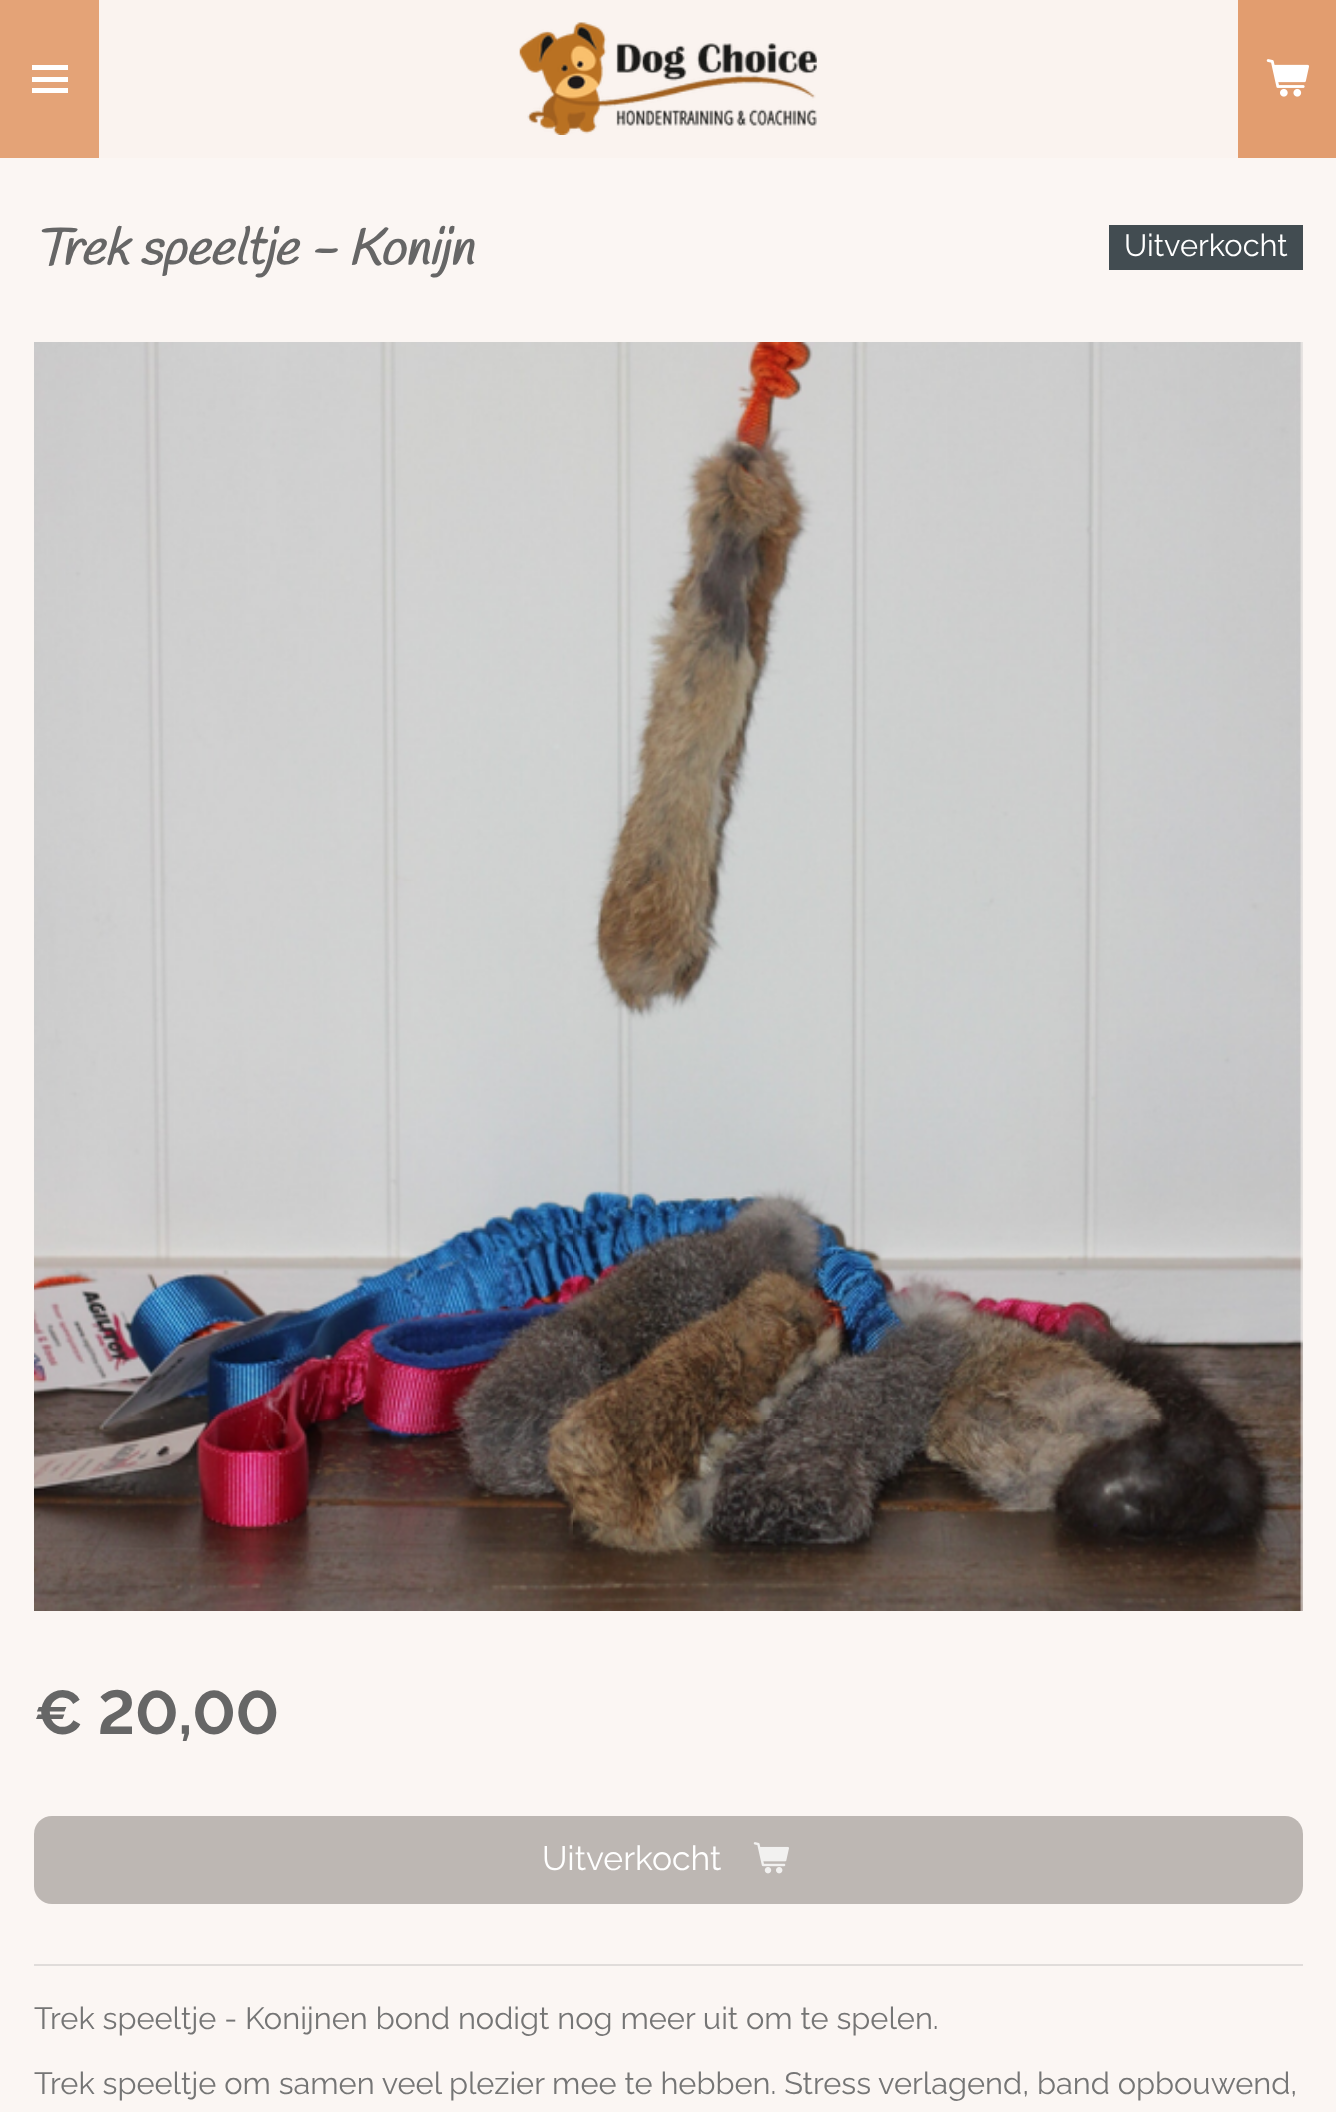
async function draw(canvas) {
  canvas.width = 1336;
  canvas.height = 2112;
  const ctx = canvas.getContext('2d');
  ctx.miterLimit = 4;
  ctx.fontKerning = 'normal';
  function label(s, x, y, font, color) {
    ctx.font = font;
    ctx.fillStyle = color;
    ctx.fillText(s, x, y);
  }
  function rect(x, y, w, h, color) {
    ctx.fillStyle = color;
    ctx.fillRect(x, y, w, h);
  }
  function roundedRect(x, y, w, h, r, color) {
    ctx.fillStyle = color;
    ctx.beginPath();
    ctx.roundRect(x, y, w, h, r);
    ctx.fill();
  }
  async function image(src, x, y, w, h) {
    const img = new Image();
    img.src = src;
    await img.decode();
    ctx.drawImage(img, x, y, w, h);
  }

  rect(0, 0, 1336, 2112, '#fbf6f3');
  rect(0, 0, 99, 158, '#e4a377');
  rect(32, 77, 36, 5, '#fff');
  rect(32, 65, 36, 5, '#fff');
  rect(32, 88, 36, 5, '#fff');
  rect(99, 0, 1139, 158, '#faf3ef');
  await image('assets/img1.png', 519, 22, 298, 113);
  rect(1238, 0, 98, 158, '#e29d6f');
  await image('assets/img2.png', 1266, 59, 43, 38);
  label('Trek speeltje - Konijn', 34, 265, 'italic bold 50.6px Handlee', '#666');
  rect(1109, 225, 194, 45, '#424c51');
  label('Uitverkocht', 1124, 256, '30.8px Raleway', '#fff');
  await image('assets/img3.png', 34, 342, 1269, 1269);
  label('€ 20,00', 34, 1734, 'bold 61.5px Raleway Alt', '#666');
  roundedRect(34, 1816, 1269, 88, 18, '#bdb7b3');
  label('Uitverkocht', 542, 1870, '33.75px Raleway', '#fff');
  await image('assets/img4.png', 753, 1842, 36, 32);
  rect(34, 1964, 1269, 2, '#e0dcda');
  label('Trek speeltje - Konijnen bond nodigt nog meer uit om te spelen.', 34, 2029, '30.8px Raleway', '#757575');
  label('Trek speeltje om samen veel plezier mee te hebben. Stress verlagend, band opbouwend,', 34, 2094, '30.8px Raleway', '#757575');
}

draw(document.querySelector('canvas'));
